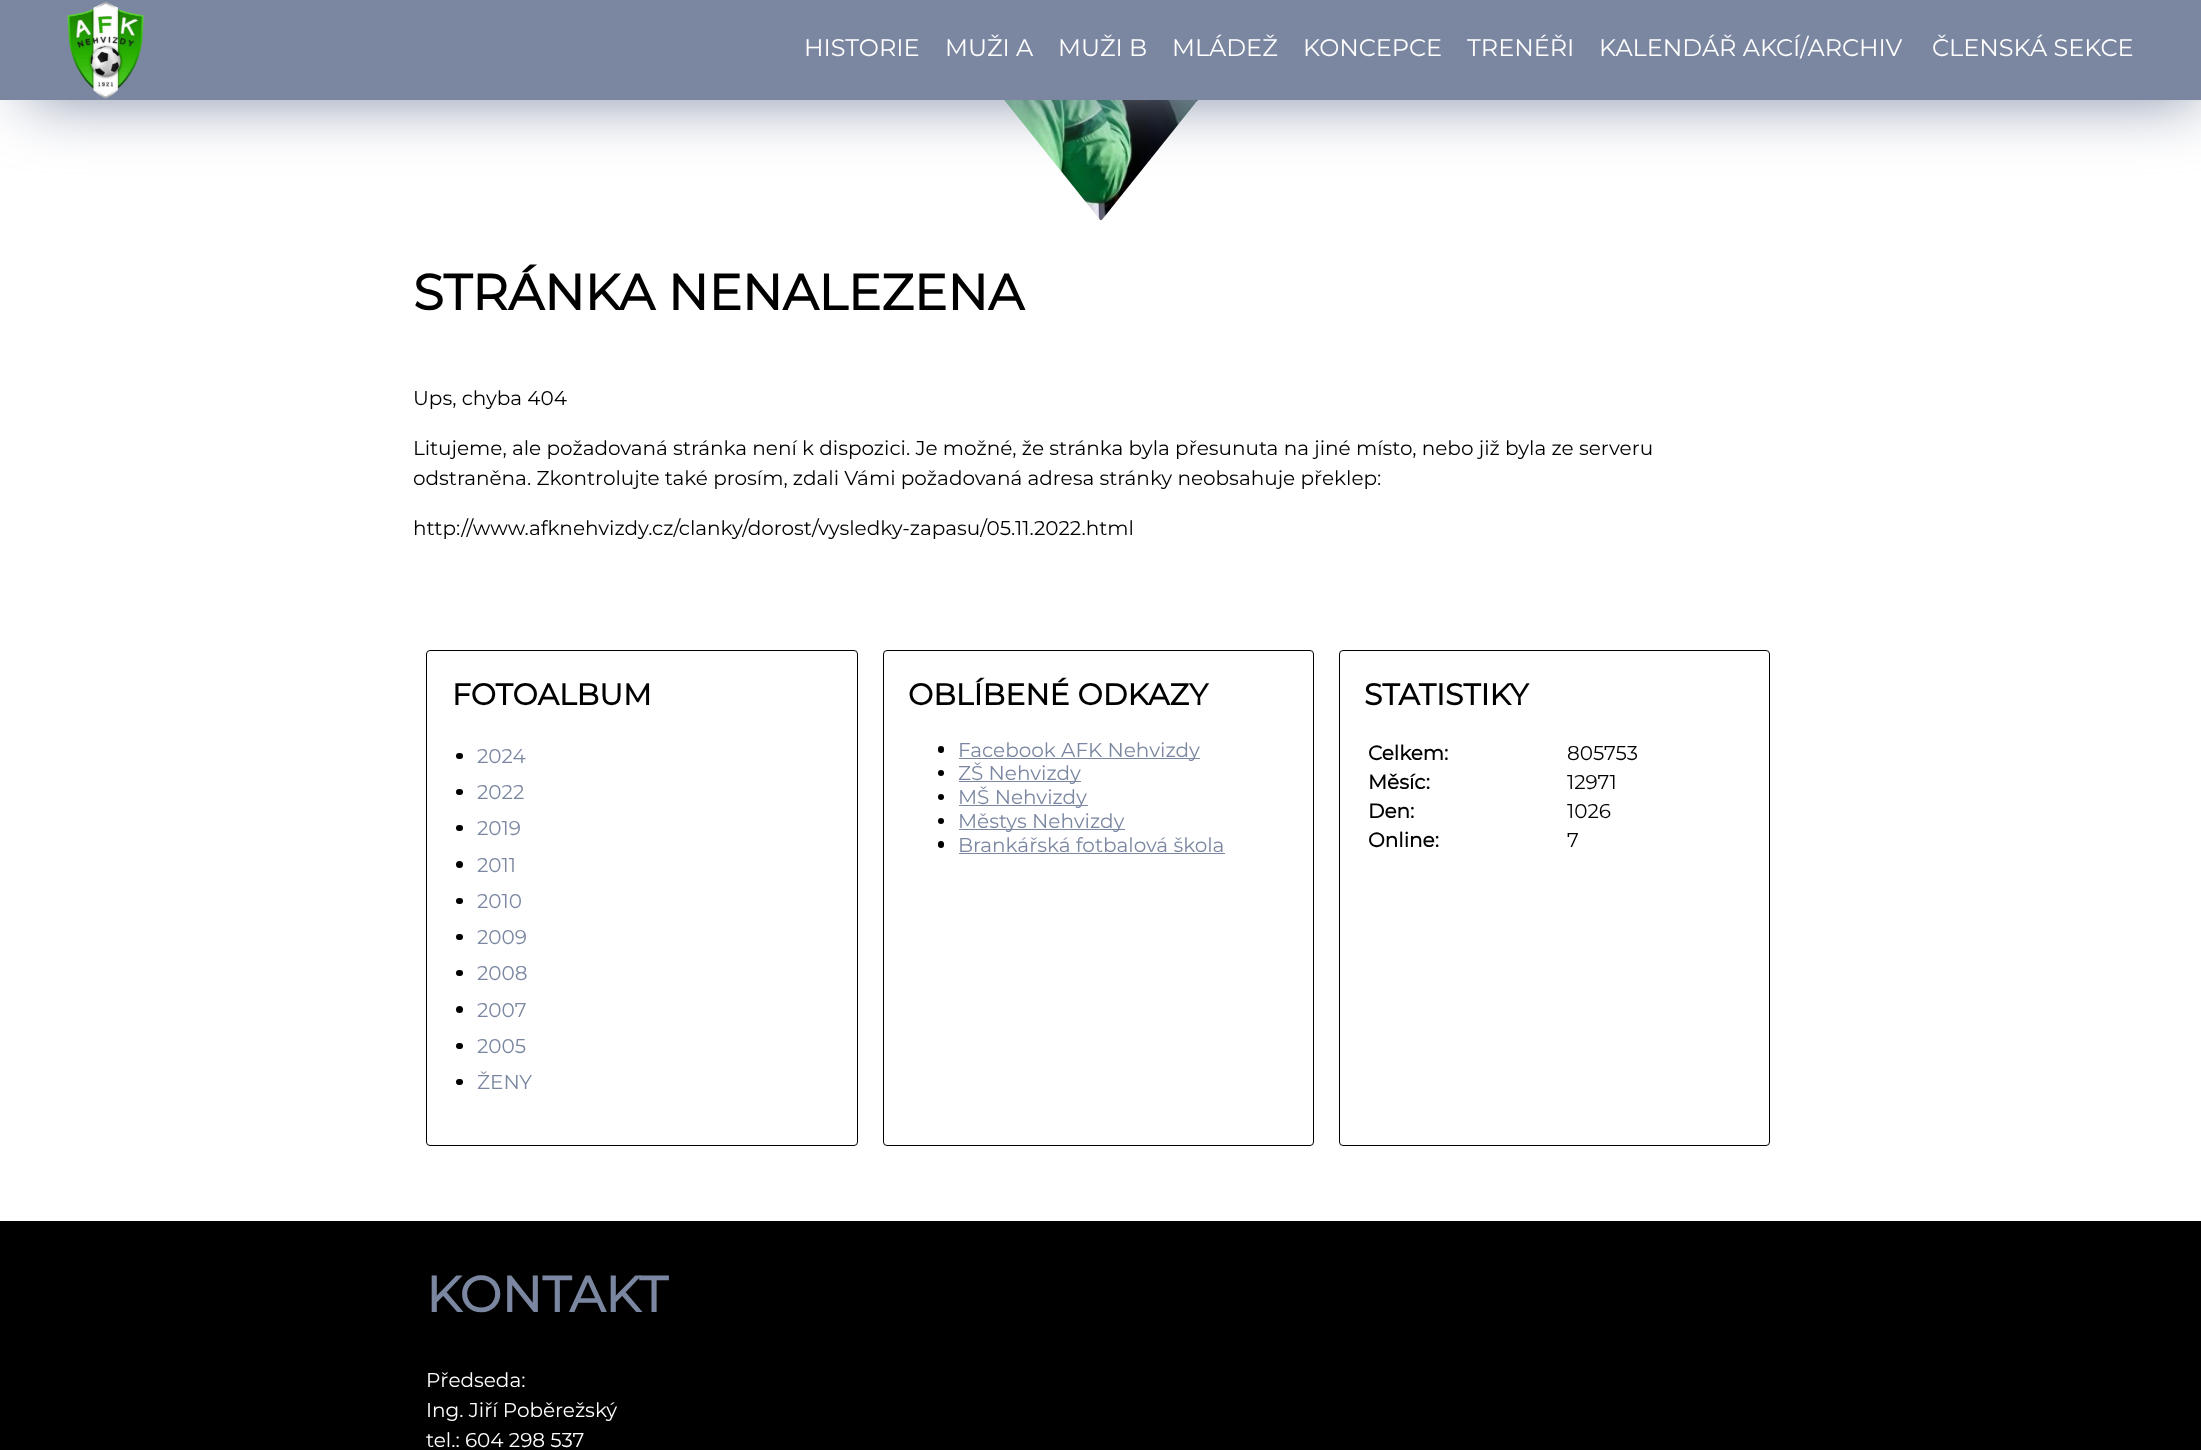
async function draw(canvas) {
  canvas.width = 2201;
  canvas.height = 1450;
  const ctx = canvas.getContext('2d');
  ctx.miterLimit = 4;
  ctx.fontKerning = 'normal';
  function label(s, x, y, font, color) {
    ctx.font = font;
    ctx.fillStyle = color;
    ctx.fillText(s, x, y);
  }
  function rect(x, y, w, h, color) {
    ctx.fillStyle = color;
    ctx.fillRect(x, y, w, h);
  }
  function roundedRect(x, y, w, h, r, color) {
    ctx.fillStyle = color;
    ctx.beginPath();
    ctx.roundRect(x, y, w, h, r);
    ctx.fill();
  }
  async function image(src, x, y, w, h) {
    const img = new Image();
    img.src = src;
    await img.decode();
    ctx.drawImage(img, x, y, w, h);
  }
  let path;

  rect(0, 0, 2201, 1450, '#fff');
  await image('assets/img2.png', 1004, 100, 194, 121);
  path = new Path2D('M1201 96V221H1101Z');
  ctx.fill(path);
  path = new Path2D('M1001 221V96L1101 221Z');
  ctx.fill(path);
  ctx.fillStyle = '#7b87a1';
  ctx.filter = 'blur(32.5px)';
  ctx.beginPath();
  ctx.rect(28, 28, 2171, 70);
  ctx.fill();
  ctx.filter = 'none';
  rect(0, 0, 2201, 100, '#7b87a1');
  await image('assets/img1.png', 67, 1, 77, 98);
  label('HISTORIE', 804, 56, '100 24px Montserrat', '#fff');
  label('MUŽI A', 945, 56, '100 24px Montserrat', '#fff');
  label('MUŽI B', 1058, 56, '100 24px Montserrat', '#fff');
  label('MLÁDEŽ', 1172, 56, '100 24px Montserrat', '#fff');
  label('KONCEPCE', 1303, 56, '100 24px Montserrat', '#fff');
  label('TRENÉŘI', 1467, 56, '100 24px Montserrat', '#fff');
  label('KALENDÁŘ AKCÍ/ARCHIV', 1599, 56, '100 24px Montserrat', '#fff');
  label('ČLENSKÁ SEKCE', 1932, 56, '100 24px Montserrat', '#fff');
  label('STRÁNKA NENALEZENA', 413, 310, 'bold 50px Montserrat', '#000');
  label('Ups, chyba 404', 413, 405, '100 20px Montserrat', '#000');
  label('Litujeme, ale požadovaná stránka není k dispozici. Je možné, že stránka byla přesunuta na jiné místo, nebo již byla ze serveru', 413, 455, '100 20px Montserrat', '#000');
  label('odstraněna. Zkontrolujte také prosím, zdali Vámi požadovaná adresa stránky neobsahuje překlep:', 413, 485, '100 20px Montserrat', '#000');
  label('http://www.afknehvizdy.cz/clanky/dorost/vysledky-zapasu/05.11.2022.html', 413, 535, '100 20px Montserrat', '#000');
  ctx.beginPath();
  ctx.roundRect(426.5, 650.5, 431, 495, 3.5);
  ctx.strokeStyle = '#000';
  ctx.stroke();
  label('FOTOALBUM', 452, 705, 'bold 30px Montserrat', '#000');
  roundedRect(456, 753, 7, 6, 3, '#000');
  label('2024', 477, 763, '100 20px Montserrat', '#7b87a1');
  roundedRect(456, 789, 7, 6, 3, '#000');
  label('2022', 477, 799, '100 20px Montserrat', '#7b87a1');
  roundedRect(456, 825, 7, 6, 3, '#000');
  label('2019', 477, 835, '100 20px Montserrat', '#7b87a1');
  ctx.fillStyle = '#000';
  ctx.beginPath();
  ctx.arc(459.5, 864.5, 3.5, 0, 2 * Math.PI);
  ctx.fill();
  label('2011', 477, 872, '100 20px Montserrat', '#7b87a1');
  roundedRect(456, 898, 7, 6, 3, '#000');
  label('2010', 477, 908, '100 20px Montserrat', '#7b87a1');
  roundedRect(456, 934, 7, 6, 3, '#000');
  label('2009', 477, 944, '100 20px Montserrat', '#7b87a1');
  roundedRect(456, 970, 7, 6, 3, '#000');
  label('2008', 477, 980, '100 20px Montserrat', '#7b87a1');
  ctx.fillStyle = '#000';
  ctx.beginPath();
  ctx.arc(459.5, 1009.5, 3.5, 0, 2 * Math.PI);
  ctx.fill();
  label('2007', 477, 1017, '100 20px Montserrat', '#7b87a1');
  roundedRect(456, 1043, 7, 6, 3, '#000');
  label('2005', 477, 1053, '100 20px Montserrat', '#7b87a1');
  roundedRect(456, 1079, 7, 6, 3, '#000');
  label('ŽENY', 477, 1089, '100 20px Montserrat', '#7b87a1');
  ctx.beginPath();
  ctx.roundRect(883.5, 650.5, 430, 495, 3.5);
  ctx.stroke();
  label('OBLÍBENÉ ODKAZY', 908, 705, 'bold 30px Montserrat', '#000');
  roundedRect(938, 746, 6, 7, 3, '#000');
  rect(959, 758, 241, 1, '#7b87a1');
  label('Facebook AFK Nehvizdy', 958, 757, '100 20px Montserrat', '#7b87a1');
  ctx.fillStyle = '#000';
  ctx.beginPath();
  ctx.arc(941, 773, 3, 0, 2 * Math.PI);
  ctx.fill();
  rect(959, 781, 122, 1, '#7b87a1');
  label('ZŠ Nehvizdy', 958, 780, '100 20px Montserrat', '#7b87a1');
  ctx.fillStyle = '#000';
  ctx.beginPath();
  ctx.arc(941, 797, 3, 0, 2 * Math.PI);
  ctx.fill();
  rect(959, 805, 129, 1, '#7b87a1');
  label('MŠ Nehvizdy', 958, 804, '100 20px Montserrat', '#7b87a1');
  ctx.fillStyle = '#000';
  ctx.beginPath();
  ctx.arc(941, 821, 3, 0, 2 * Math.PI);
  ctx.fill();
  rect(959, 829, 166, 1, '#7b87a1');
  label('Městys Nehvizdy', 958, 828, '100 20px Montserrat', '#7b87a1');
  roundedRect(938, 841, 6, 7, 3, '#000');
  label('Brankářská fotbalová škola', 958, 852, '100 20px Montserrat', '#7b87a1');
  rect(959, 853, 266, 1, '#7b87a1');
  ctx.beginPath();
  ctx.roundRect(1339.5, 650.5, 430, 495, 3.5);
  ctx.stroke();
  label('STATISTIKY', 1364, 705, 'bold 30px Montserrat', '#000');
  label('Celkem:', 1368, 760, 'bold 20px Montserrat', '#000');
  label('805753', 1567, 760, '100 20px Montserrat', '#000');
  label('Měsíc:', 1368, 789, 'bold 20px Montserrat', '#000');
  label('12971', 1567, 789, '100 20px Montserrat', '#000');
  label('Den:', 1368, 818, 'bold 20px Montserrat', '#000');
  label('1026', 1567, 818, '100 20px Montserrat', '#000');
  label('Online:', 1368, 847, 'bold 20px Montserrat', '#000');
  label('7', 1567, 847, '100 20px Montserrat', '#000');
  rect(0, 1221, 2201, 229, '#000');
  label('KONTAKT', 426, 1312, 'bold 50px Montserrat', '#7b87a1');
  label('Předseda:', 426, 1387, '100 20px Montserrat', '#fff');
  label('Ing. Jiří Poběrežský', 426, 1417, '100 20px Montserrat', '#fff');
  label('tel.: 604 298 537', 426, 1447, '100 20px Montserrat', '#fff');
}

draw(document.querySelector('canvas'));
